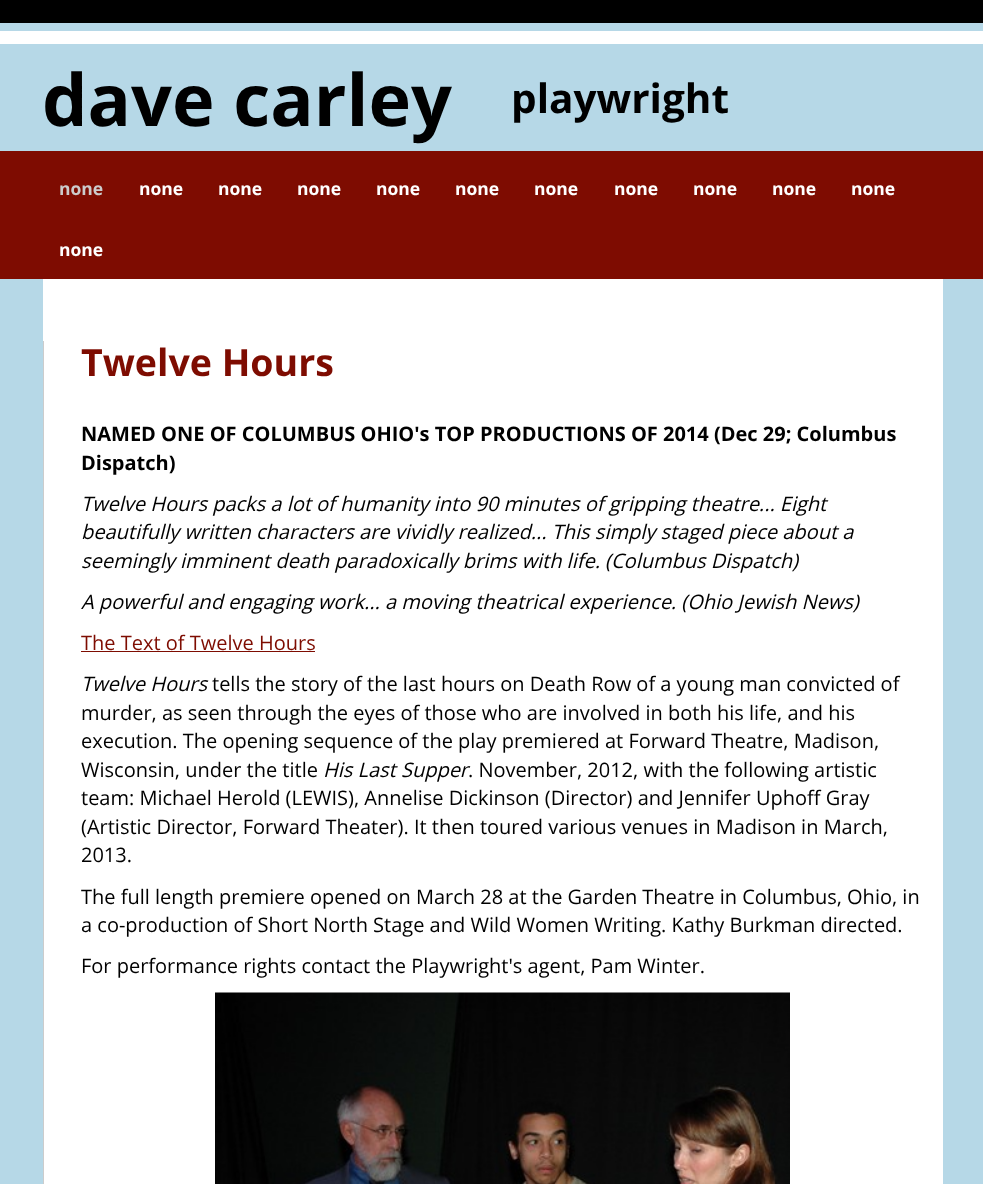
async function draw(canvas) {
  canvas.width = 983;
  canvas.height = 1184;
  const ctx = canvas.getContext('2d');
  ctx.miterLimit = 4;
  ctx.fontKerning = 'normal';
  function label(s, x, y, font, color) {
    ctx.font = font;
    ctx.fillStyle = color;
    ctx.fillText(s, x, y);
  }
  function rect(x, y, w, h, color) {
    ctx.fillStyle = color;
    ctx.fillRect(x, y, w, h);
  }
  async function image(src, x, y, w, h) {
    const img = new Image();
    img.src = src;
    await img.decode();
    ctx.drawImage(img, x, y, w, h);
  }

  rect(0, 0, 983, 1184, '#b6d8e7');
  rect(0, 0, 983, 23, '#000');
  rect(0, 31, 983, 13, '#fff');
  label('dave carley', 42, 126, 'bold 72px Open Sans', '#000');
  label('playwright', 511, 113, 'bold 40.5px Open Sans', '#000');
  rect(0, 151, 983, 128, '#7e0c01');
  label('none', 59, 195, 'bold 17.5px Open Sans', '#ccc');
  label('none', 139, 195, 'bold 17.5px Open Sans', '#fff');
  label('none', 218, 195, 'bold 17.5px Open Sans', '#fff');
  label('none', 297, 195, 'bold 17.5px Open Sans', '#fff');
  label('none', 376, 195, 'bold 17.5px Open Sans', '#fff');
  label('none', 455, 195, 'bold 17.5px Open Sans', '#fff');
  label('none', 534, 195, 'bold 17.5px Open Sans', '#fff');
  label('none', 614, 195, 'bold 17.5px Open Sans', '#fff');
  label('none', 693, 195, 'bold 17.5px Open Sans', '#fff');
  label('none', 772, 195, 'bold 17.5px Open Sans', '#fff');
  label('none', 851, 195, 'bold 17.5px Open Sans', '#fff');
  label('none', 59, 256, 'bold 17.5px Open Sans', '#fff');
  rect(43, 279, 900, 905, '#fff');
  rect(43, 341, 1, 843, '#ccc');
  label('Twelve Hours', 81, 376, 'bold 37.5px Open Sans', '#7e0c01');
  label('NAMED ONE OF COLUMBUS OHIO\'s TOP PRODUCTIONS OF 2014 (Dec 29; Columbus', 81, 441, 'bold 20px Open Sans', '#000');
  label('Dispatch)', 81, 470, 'bold 20px Open Sans', '#000');
  label('Twelve Hours packs a lot of humanity into 90 minutes of gripping theatre... Eight', 81, 511, 'italic 20px Open Sans', '#000');
  label('beautifully written characters are vividly realized... This simply staged piece about a', 81, 539, 'italic 20px Open Sans', '#000');
  label('seemingly imminent death paradoxically brims with life. (Columbus Dispatch)', 81, 568, 'italic 20px Open Sans', '#000');
  label('A powerful and engaging work... a moving theatrical experience. (Ohio Jewish News)', 81, 609, 'italic 20px Open Sans', '#000');
  label('The Text of Twelve Hours', 81, 650, '20px Open Sans', '#7e0c01');
  rect(81, 651, 234, 1, '#7e0c01');
  label('Twelve Hours', 81, 691, 'italic 20px Open Sans', '#000');
  label('tells the story of the last hours on Death Row of a young man convicted of', 212, 691, '20px Open Sans', '#000');
  label('murder, as seen through the eyes of those who are involved in both his life, and his', 81, 720, '20px Open Sans', '#000');
  label('execution. The opening sequence of the play premiered at Forward Theatre, Madison,', 81, 748, '20px Open Sans', '#000');
  label('Wisconsin, under the title', 81, 777, '20px Open Sans', '#000');
  label('His Last Supper', 323, 777, 'italic 20px Open Sans', '#000');
  label('. November, 2012, with the following artistic', 468, 777, '20px Open Sans', '#000');
  label('team: Michael Herold (LEWIS), Annelise Dickinson (Director) and Jennifer Uphoff Gray', 81, 805, '20px Open Sans', '#000');
  label('(Artistic Director, Forward Theater). It then toured various venues in Madison in March,', 81, 834, '20px Open Sans', '#000');
  label('2013.', 81, 862, '20px Open Sans', '#000');
  label('The full length premiere opened on March 28 at the Garden Theatre in Columbus, Ohio, in', 81, 904, '20px Open Sans', '#000');
  label('a co-production of Short North Stage and Wild Women Writing. Kathy Burkman directed.', 81, 932, '20px Open Sans', '#000');
  label('For performance rights contact the Playwright\'s agent, Pam Winter.', 81, 973, '20px Open Sans', '#000');
  await image('assets/img1.png', 215, 992, 575, 192);
}

draw(document.querySelector('canvas'));
